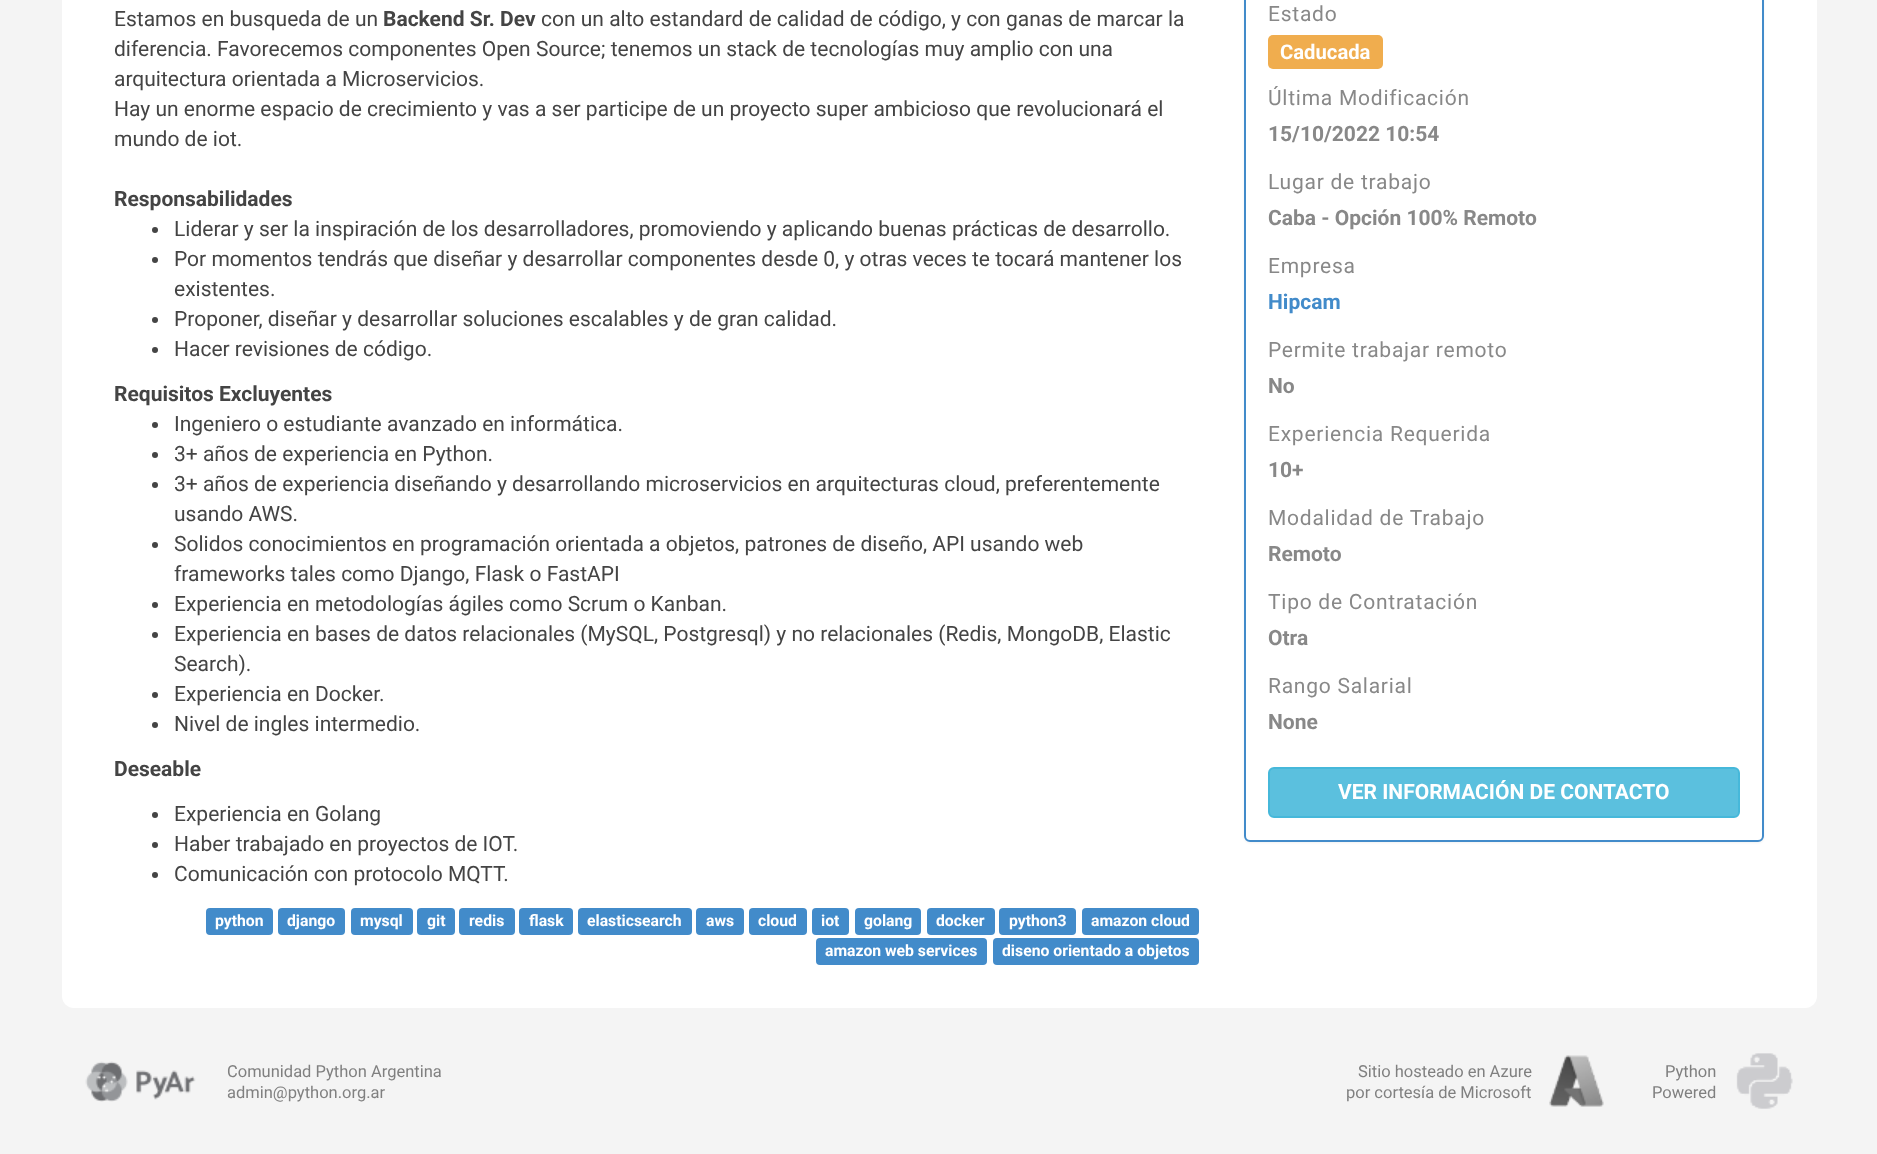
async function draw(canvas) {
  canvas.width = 1877;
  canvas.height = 1154;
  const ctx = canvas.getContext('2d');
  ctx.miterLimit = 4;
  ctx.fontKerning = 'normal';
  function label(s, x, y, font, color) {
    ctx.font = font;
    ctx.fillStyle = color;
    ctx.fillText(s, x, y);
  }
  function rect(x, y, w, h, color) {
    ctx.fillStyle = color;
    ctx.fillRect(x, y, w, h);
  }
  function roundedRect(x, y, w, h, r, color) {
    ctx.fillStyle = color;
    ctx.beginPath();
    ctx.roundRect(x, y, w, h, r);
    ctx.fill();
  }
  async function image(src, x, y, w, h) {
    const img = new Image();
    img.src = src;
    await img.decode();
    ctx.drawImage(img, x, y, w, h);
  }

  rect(0, 0, 1877, 1154, '#f4f4f4');
  roundedRect(62, -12, 1755, 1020, 12, '#fff');
  label('Estamos en busqueda de un', 114, 26, '21px Roboto', '#444');
  label('Backend Sr. Dev', 383, 26, 'bold 21px Roboto', '#444');
  label('con un alto estandard de calidad de código, y con ganas de marcar la', 541, 26, '21px Roboto', '#444');
  label('diferencia. Favorecemos componentes Open Source; tenemos un stack de tecnologías muy amplio con una', 114, 56, '21px Roboto', '#444');
  label('arquitectura orientada a Microservicios.', 114, 86, '21px Roboto', '#444');
  label('Hay un enorme espacio de crecimiento y vas a ser participe de un proyecto super ambicioso que revolucionará el', 114, 116, '21px Roboto', '#444');
  label('mundo de iot.', 114, 146, '21px Roboto', '#444');
  label('Responsabilidades', 114, 206, 'bold 21px Roboto', '#444');
  ctx.beginPath();
  ctx.arc(155, 230, 3, 0, 2 * Math.PI);
  ctx.fill();
  label('Liderar y ser la inspiración de los desarrolladores, promoviendo y aplicando buenas prácticas de desarrollo.', 174, 236, '21px Roboto', '#444');
  ctx.beginPath();
  ctx.arc(155, 260, 3, 0, 2 * Math.PI);
  ctx.fill();
  label('Por momentos tendrás que diseñar y desarrollar componentes desde 0, y otras veces te tocará mantener los', 174, 266, '21px Roboto', '#444');
  label('existentes.', 174, 296, '21px Roboto', '#444');
  ctx.beginPath();
  ctx.arc(155, 320, 3, 0, 2 * Math.PI);
  ctx.fill();
  label('Proponer, diseñar y desarrollar soluciones escalables y de gran calidad.', 174, 326, '21px Roboto', '#444');
  ctx.beginPath();
  ctx.arc(155, 350, 3, 0, 2 * Math.PI);
  ctx.fill();
  label('Hacer revisiones de código.', 174, 356, '21px Roboto', '#444');
  label('Requisitos Excluyentes', 114, 401, 'bold 21px Roboto', '#444');
  ctx.beginPath();
  ctx.arc(155, 425, 3, 0, 2 * Math.PI);
  ctx.fill();
  label('Ingeniero o estudiante avanzado en informática.', 174, 431, '21px Roboto', '#444');
  ctx.beginPath();
  ctx.arc(155, 455, 3, 0, 2 * Math.PI);
  ctx.fill();
  label('3+ años de experiencia en Python.', 174, 461, '21px Roboto', '#444');
  ctx.beginPath();
  ctx.arc(155, 485, 3, 0, 2 * Math.PI);
  ctx.fill();
  label('3+ años de experiencia diseñando y desarrollando microservicios en arquitecturas cloud, preferentemente', 174, 491, '21px Roboto', '#444');
  label('usando AWS.', 174, 521, '21px Roboto', '#444');
  ctx.beginPath();
  ctx.arc(155, 545, 3, 0, 2 * Math.PI);
  ctx.fill();
  label('Solidos conocimientos en programación orientada a objetos, patrones de diseño, API usando web', 174, 551, '21px Roboto', '#444');
  label('frameworks tales como Django, Flask o FastAPI', 174, 581, '21px Roboto', '#444');
  ctx.beginPath();
  ctx.arc(155, 605, 3, 0, 2 * Math.PI);
  ctx.fill();
  label('Experiencia en metodologías ágiles como Scrum o Kanban.', 174, 611, '21px Roboto', '#444');
  ctx.beginPath();
  ctx.arc(155, 635, 3, 0, 2 * Math.PI);
  ctx.fill();
  label('Experiencia en bases de datos relacionales (MySQL, Postgresql) y no relacionales (Redis, MongoDB, Elastic', 174, 641, '21px Roboto', '#444');
  label('Search).', 174, 671, '21px Roboto', '#444');
  ctx.beginPath();
  ctx.arc(155, 695, 3, 0, 2 * Math.PI);
  ctx.fill();
  label('Experiencia en Docker.', 174, 701, '21px Roboto', '#444');
  ctx.beginPath();
  ctx.arc(155, 725, 3, 0, 2 * Math.PI);
  ctx.fill();
  label('Nivel de ingles intermedio.', 174, 731, '21px Roboto', '#444');
  label('Deseable', 114, 776, 'bold 21px Roboto', '#444');
  ctx.beginPath();
  ctx.arc(155, 815, 3, 0, 2 * Math.PI);
  ctx.fill();
  label('Experiencia en Golang', 174, 821, '21px Roboto', '#444');
  ctx.beginPath();
  ctx.arc(155, 845, 3, 0, 2 * Math.PI);
  ctx.fill();
  label('Haber trabajado en proyectos de IOT.', 174, 851, '21px Roboto', '#444');
  ctx.beginPath();
  ctx.arc(155, 875, 3, 0, 2 * Math.PI);
  ctx.fill();
  label('Comunicación con protocolo MQTT.', 174, 881, '21px Roboto', '#444');
  roundedRect(206, 908, 67, 27, 4, '#428bca');
  label('python', 215, 926, 'bold 15.75px Roboto', '#fff');
  roundedRect(278, 908, 67, 27, 4, '#428bca');
  label('django', 287, 926, 'bold 15.75px Roboto', '#fff');
  roundedRect(351, 908, 62, 27, 4, '#428bca');
  label('mysql', 360, 926, 'bold 15.75px Roboto', '#fff');
  roundedRect(417, 908, 38, 27, 4, '#428bca');
  label('git', 427, 926, 'bold 15.75px Roboto', '#fff');
  roundedRect(459, 908, 56, 27, 4, '#428bca');
  label('redis', 469, 926, 'bold 15.75px Roboto', '#fff');
  roundedRect(519, 908, 54, 27, 4, '#428bca');
  label('flask', 529, 926, 'bold 15.75px Roboto', '#fff');
  roundedRect(578, 908, 114, 27, 4, '#428bca');
  label('elasticsearch', 587, 926, 'bold 15.75px Roboto', '#fff');
  roundedRect(696, 908, 48, 27, 4, '#428bca');
  label('aws', 706, 926, 'bold 15.75px Roboto', '#fff');
  roundedRect(749, 908, 58, 27, 4, '#428bca');
  label('cloud', 758, 926, 'bold 15.75px Roboto', '#fff');
  roundedRect(812, 908, 37, 27, 4, '#428bca');
  label('iot', 821, 926, 'bold 15.75px Roboto', '#fff');
  roundedRect(855, 908, 66, 27, 4, '#428bca');
  label('golang', 864, 926, 'bold 15.75px Roboto', '#fff');
  roundedRect(927, 908, 68, 27, 4, '#428bca');
  label('docker', 936, 926, 'bold 15.75px Roboto', '#fff');
  roundedRect(999, 908, 77, 27, 4, '#428bca');
  label('python3', 1009, 926, 'bold 15.75px Roboto', '#fff');
  roundedRect(1082, 908, 117, 27, 4, '#428bca');
  label('amazon cloud', 1091, 926, 'bold 15.75px Roboto', '#fff');
  roundedRect(816, 938, 171, 27, 4, '#428bca');
  label('amazon web services', 825, 956, 'bold 15.75px Roboto', '#fff');
  roundedRect(993, 938, 206, 27, 4, '#428bca');
  label('diseno orientado a objetos', 1002, 956, 'bold 15.75px Roboto', '#fff');
  ctx.fillStyle = '#0000000d';
  ctx.filter = 'blur(1px)';
  ctx.beginPath();
  ctx.roundRect(1244, -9, 520, 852, 6);
  ctx.fill();
  ctx.filter = 'none';
  ctx.fillStyle = '#fff';
  ctx.beginPath();
  ctx.roundRect(1245, -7, 518, 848, 5);
  ctx.fill();
  ctx.strokeStyle = '#428bca';
  ctx.lineWidth = 2;
  ctx.stroke();
  ctx.letterSpacing = '0.75px';
  label('Estado', 1268, 21, '21px Roboto', '#888');
  roundedRect(1268, 35, 115, 34, 5, '#f0ad4e');
  ctx.letterSpacing = '0px';
  label('Caducada', 1280, 59, 'bold 20.25px Roboto', '#fff');
  ctx.letterSpacing = '0.75px';
  label('Última Modificación', 1268, 105, '21px Roboto', '#888');
  ctx.letterSpacing = '0px';
  label('15/10/2022 10:54', 1268, 141, 'bold 21px Roboto', '#888');
  ctx.letterSpacing = '0.75px';
  label('Lugar de trabajo', 1268, 189, '21px Roboto', '#888');
  ctx.letterSpacing = '0px';
  label('Caba - Opción 100% Remoto', 1268, 225, 'bold 21px Roboto', '#888');
  ctx.letterSpacing = '0.75px';
  label('Empresa', 1268, 273, '21px Roboto', '#888');
  ctx.letterSpacing = '0px';
  label('Hipcam', 1268, 309, 'bold 21px Roboto', '#428bca');
  ctx.letterSpacing = '0.75px';
  label('Permite trabajar remoto', 1268, 357, '21px Roboto', '#888');
  ctx.letterSpacing = '0px';
  label('No', 1268, 393, 'bold 21px Roboto', '#888');
  ctx.letterSpacing = '0.75px';
  label('Experiencia Requerida', 1268, 441, '21px Roboto', '#888');
  ctx.letterSpacing = '0px';
  label('10+', 1268, 477, 'bold 21px Roboto', '#888');
  ctx.letterSpacing = '0.75px';
  label('Modalidad de Trabajo', 1268, 525, '21px Roboto', '#888');
  ctx.letterSpacing = '0px';
  label('Remoto', 1268, 561, 'bold 21px Roboto', '#888');
  ctx.letterSpacing = '0.75px';
  label('Tipo de Contratación', 1268, 609, '21px Roboto', '#888');
  ctx.letterSpacing = '0px';
  label('Otra', 1268, 645, 'bold 21px Roboto', '#888');
  ctx.letterSpacing = '0.75px';
  label('Rango Salarial', 1268, 693, '21px Roboto', '#888');
  ctx.letterSpacing = '0px';
  label('None', 1268, 729, 'bold 21px Roboto', '#888');
  ctx.fillStyle = '#5bc0de';
  ctx.beginPath();
  ctx.roundRect(1269, 768, 470, 49, 5);
  ctx.fill();
  ctx.strokeStyle = '#46b8da';
  ctx.stroke();
  label('VER INFORMACIÓN DE CONTACTO', 1338, 799, 'bold 21px Roboto', '#fff');
  await image('assets/img1.png', 85, 1061, 111, 41);
  label('Comunidad Python Argentina', 227, 1077, '16.5px Roboto', '#808080');
  label('admin@python.org.ar', 227, 1098, '16.5px Roboto', '#808080');
  await image('assets/img2.png', 1549, 1055, 55, 52);
  label('Sitio hosteado en Azure', 1358, 1077, '16.5px Roboto', '#808080');
  label('por cortesía de Microsoft', 1346, 1098, '16.5px Roboto', '#808080');
  await image('assets/img3.png', 1736, 1053, 57, 56);
  label('Python', 1665, 1077, '16.5px Roboto', '#808080');
  label('Powered', 1652, 1098, '16.5px Roboto', '#808080');
}

draw(document.querySelector('canvas'));
